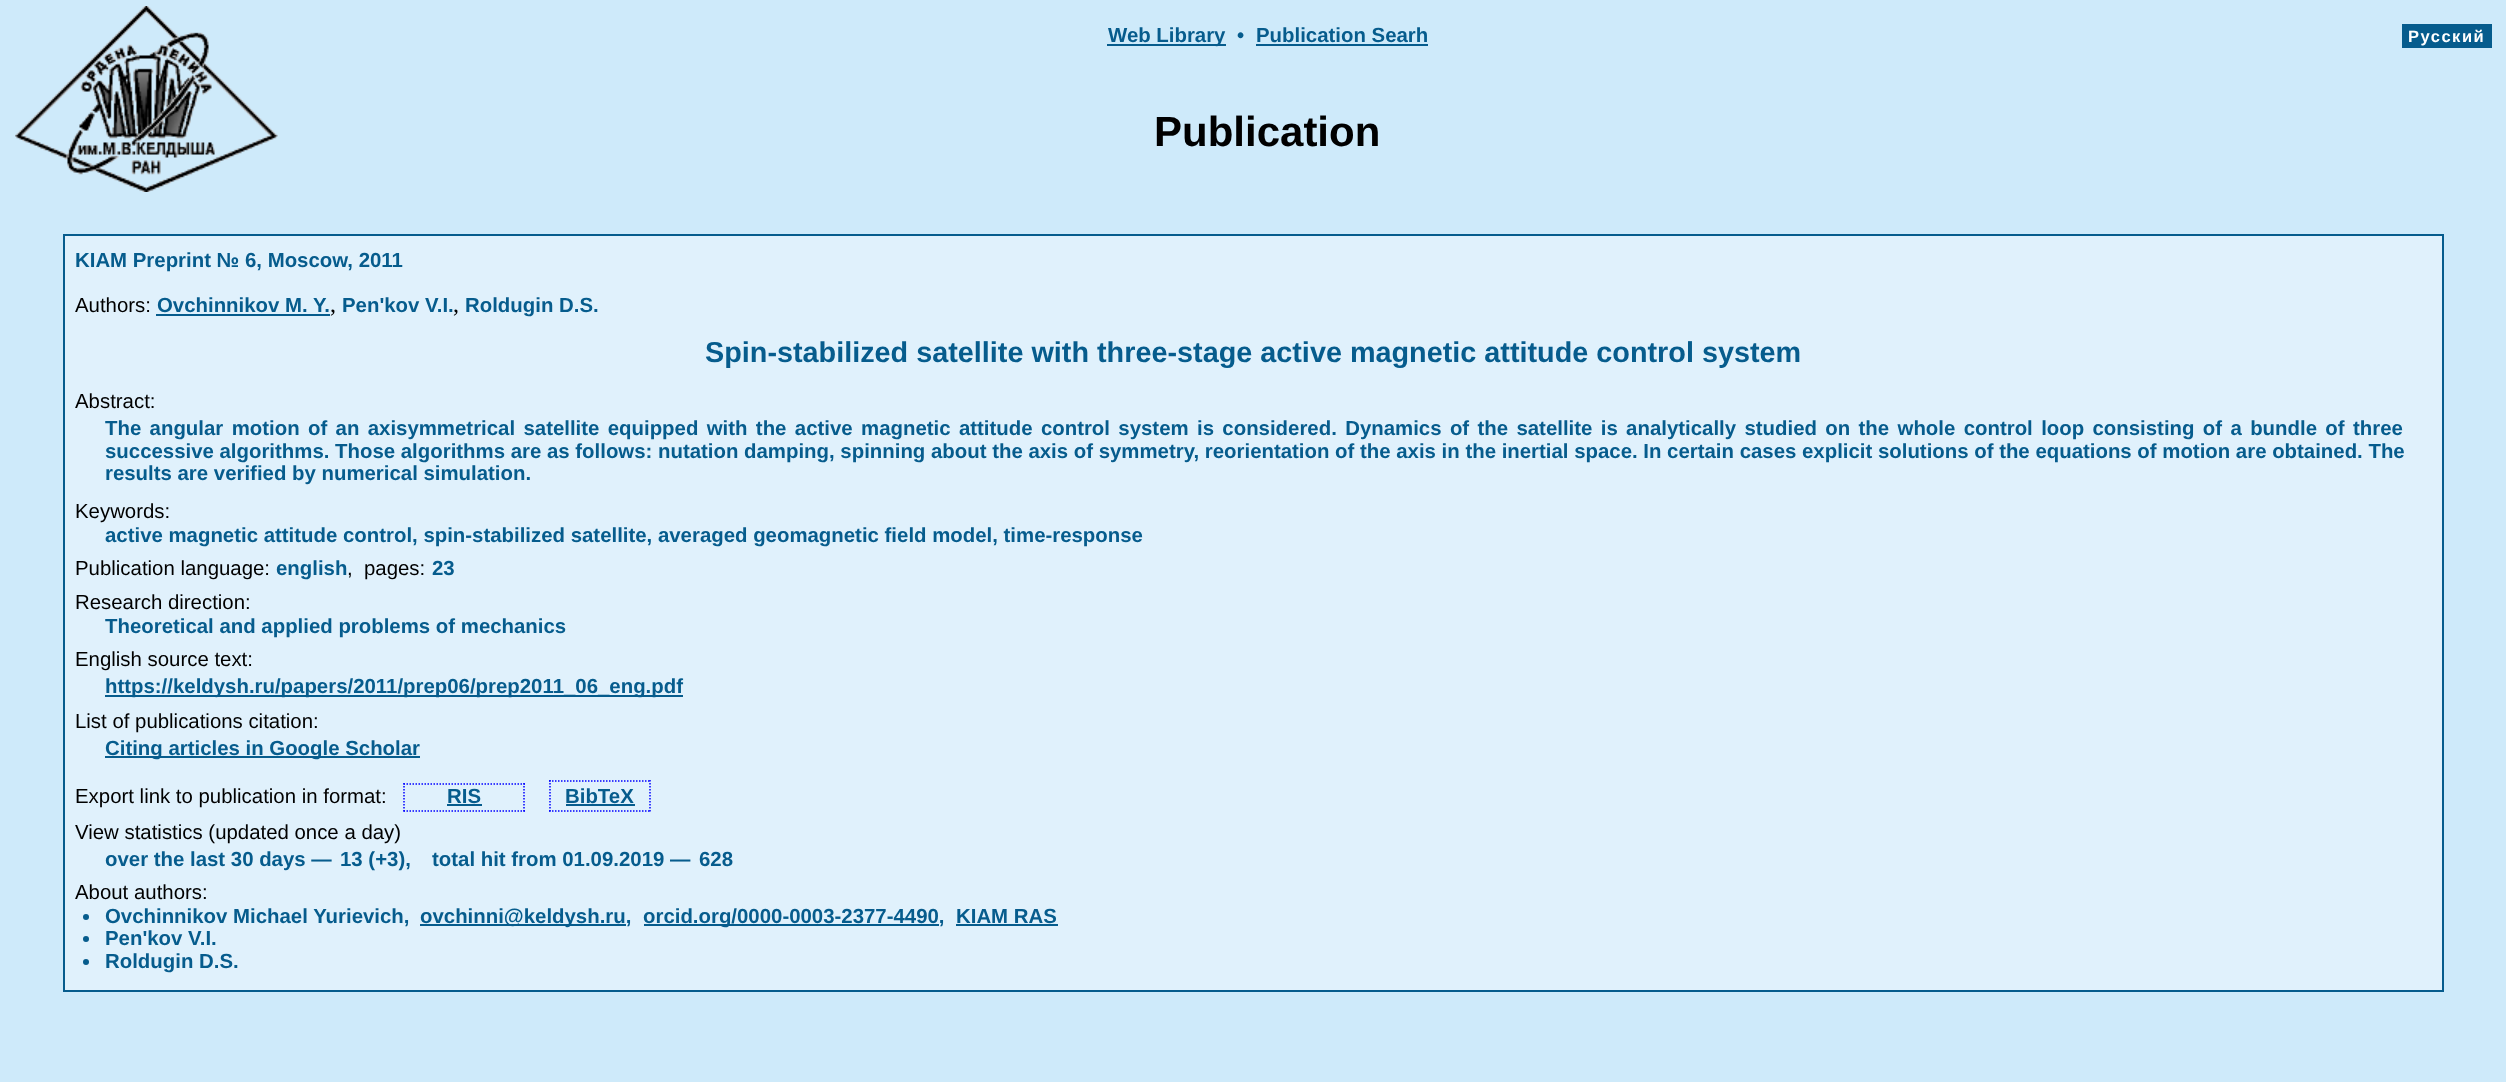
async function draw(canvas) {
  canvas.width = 2506;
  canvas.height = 1082;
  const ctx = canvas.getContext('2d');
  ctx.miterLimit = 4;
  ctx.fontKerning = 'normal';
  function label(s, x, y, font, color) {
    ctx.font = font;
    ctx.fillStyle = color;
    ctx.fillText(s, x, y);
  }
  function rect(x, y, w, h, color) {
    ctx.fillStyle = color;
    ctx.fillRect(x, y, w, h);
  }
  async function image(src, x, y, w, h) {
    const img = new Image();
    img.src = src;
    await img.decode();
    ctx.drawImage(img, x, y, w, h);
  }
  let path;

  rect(0, 0, 2506, 1082, '#ceeafa');
  await image('assets/img1.png', 15, 6, 263, 186);
  rect(1107, 44, 119, 2, '#065c8d');
  label('Web Library', 1108, 42, 'bold 20.4px Liberation Sans', '#065c8d');
  label('•', 1237, 42, 'bold 20.4px Liberation Sans', '#065c8d');
  label('Publication Searh', 1256, 42, 'bold 20.4px Liberation Sans', '#065c8d');
  rect(1256, 44, 172, 2, '#065c8d');
  rect(2402, 24, 90, 24, '#065c8d');
  ctx.letterSpacing = '1.5px';
  label('Русский', 2408, 42, 'bold 16.5px Liberation Sans', '#fff');
  ctx.letterSpacing = '0px';
  label('Publication', 1154, 146, 'bold 42px Liberation Sans', '#000');
  rect(63, 234, 2381, 758, '#065c8d');
  rect(65, 236, 2377, 754, '#e0f1fc');
  label('KIAM Preprint № 6, Moscow, 2011', 75, 267, 'bold 20.4px Liberation Sans', '#065c8d');
  label('Authors:', 75, 312, '20.4px Liberation Sans', '#000');
  label('Ovchinnikov M. Y.', 157, 312, 'bold 20.4px Liberation Sans', '#065c8d');
  rect(156, 314, 174, 2, '#065c8d');
  label(',', 330, 312, '24px Liberation Serif', '#000');
  label('Pen\'kov V.I.', 342, 312, 'bold 20.4px Liberation Sans', '#065c8d');
  label(',', 453, 312, '24px Liberation Serif', '#000');
  label('Roldugin D.S.', 465, 312, 'bold 20.4px Liberation Sans', '#065c8d');
  label('Spin-stabilized satellite with three-stage active magnetic attitude control system', 705, 362, 'bold 28.8px Liberation Sans', '#065c8d');
  label('Abstract:', 75, 408, '20.4px Liberation Sans', '#000');
  ctx.wordSpacing = '2.7px';
  label('The angular motion of an axisymmetrical satellite equipped with the active magnetic attitude control system is considered. Dynamics of the satellite is analytically studied on the whole control loop consisting of a bundle of three', 105, 435, 'bold 20.4px Liberation Sans', '#065c8d');
  ctx.wordSpacing = '0px';
  label('successive algorithms. Those algorithms are as follows: nutation damping, spinning about the axis of symmetry, reorientation of the axis in the inertial space. In certain cases explicit solutions of the equations of motion are obtained. The', 105, 458, 'bold 20.4px Liberation Sans', '#065c8d');
  label('results are verified by numerical simulation.', 105, 480, 'bold 20.4px Liberation Sans', '#065c8d');
  label('Keywords:', 75, 518, '20.4px Liberation Sans', '#000');
  label('active magnetic attitude control, spin-stabilized satellite, averaged geomagnetic field model, time-response', 105, 542, 'bold 20.4px Liberation Sans', '#065c8d');
  label('Publication language:', 75, 575, '20.4px Liberation Sans', '#000');
  label('english', 276, 575, 'bold 20.4px Liberation Sans', '#065c8d');
  label(',', 347, 575, '20.4px Liberation Sans', '#000');
  label('pages:', 364, 575, '20.4px Liberation Sans', '#000');
  label('23', 432, 575, 'bold 20.4px Liberation Sans', '#065c8d');
  label('Research direction:', 75, 609, '20.4px Liberation Sans', '#000');
  label('Theoretical and applied problems of mechanics', 105, 633, 'bold 20.4px Liberation Sans', '#065c8d');
  label('English source text:', 75, 666, '20.4px Liberation Sans', '#000');
  rect(105, 695, 578, 2, '#065c8d');
  label('https://keldysh.ru/papers/2011/prep06/prep2011_06_eng.pdf', 105, 693, 'bold 20.4px Liberation Sans', '#065c8d');
  label('List of publications citation:', 75, 728, '20.4px Liberation Sans', '#000');
  rect(105, 756, 315, 2, '#065c8d');
  label('Citing articles in Google Scholar', 105, 755, 'bold 20.4px Liberation Sans', '#065c8d');
  label('Export link to publication in format:', 75, 803, '20.4px Liberation Sans', '#000');
  label('RIS', 447, 803, 'bold 20.4px Liberation Sans', '#065c8d');
  path = new Path2D('M403.5 784H525');
  ctx.strokeStyle = '#00f';
  ctx.lineWidth = 1.5;
  ctx.setLineDash([1.5, 1.5]);
  ctx.stroke(path);
  path = new Path2D('M524 783V811.5');
  ctx.stroke(path);
  path = new Path2D('M403.5 811H525');
  ctx.stroke(path);
  path = new Path2D('M404 783V811.5');
  ctx.stroke(path);
  rect(447, 804, 35, 2, '#065c8d');
  label('BibTeX', 565, 803, 'bold 20.4px Liberation Sans', '#065c8d');
  path = new Path2D('M549 781H651');
  ctx.stroke(path);
  path = new Path2D('M650 780V811.5');
  ctx.stroke(path);
  path = new Path2D('M549 811H651');
  ctx.stroke(path);
  path = new Path2D('M550 780V811.5');
  ctx.stroke(path);
  rect(566, 804, 69, 2, '#065c8d');
  label('View statistics (updated once a day)', 75, 839, '20.4px Liberation Sans', '#000');
  label('over the last 30 days —', 105, 866, 'bold 20.4px Liberation Sans', '#065c8d');
  label('13 (+3),', 340, 866, 'bold 20.4px Liberation Sans', '#065c8d');
  label('total hit from 01.09.2019 —', 432, 866, 'bold 20.4px Liberation Sans', '#065c8d');
  label('628', 699, 866, 'bold 20.4px Liberation Sans', '#065c8d');
  label('About authors:', 75, 899, '20.4px Liberation Sans', '#000');
  ctx.fillStyle = '#065c8d';
  ctx.beginPath();
  ctx.arc(86, 917, 3, 0, 2 * Math.PI);
  ctx.fill();
  label('Ovchinnikov Michael Yurievich,', 105, 923, 'bold 20.4px Liberation Sans', '#065c8d');
  rect(420, 924, 206, 2, '#065c8d');
  label('ovchinni@keldysh.ru,', 420, 923, 'bold 20.4px Liberation Sans', '#065c8d');
  rect(644, 924, 295, 2, '#065c8d');
  label('orcid.org/0000-0003-2377-4490,', 643, 923, 'bold 20.4px Liberation Sans', '#065c8d');
  label('KIAM RAS', 956, 923, 'bold 20.4px Liberation Sans', '#065c8d');
  rect(956, 924, 102, 2, '#065c8d');
  ctx.beginPath();
  ctx.arc(86, 939, 3, 0, 2 * Math.PI);
  ctx.fill();
  label('Pen\'kov V.I.', 105, 945, 'bold 20.4px Liberation Sans', '#065c8d');
  ctx.beginPath();
  ctx.arc(86, 962, 3, 0, 2 * Math.PI);
  ctx.fill();
  label('Roldugin D.S.', 105, 968, 'bold 20.4px Liberation Sans', '#065c8d');
}

draw(document.querySelector('canvas'));
